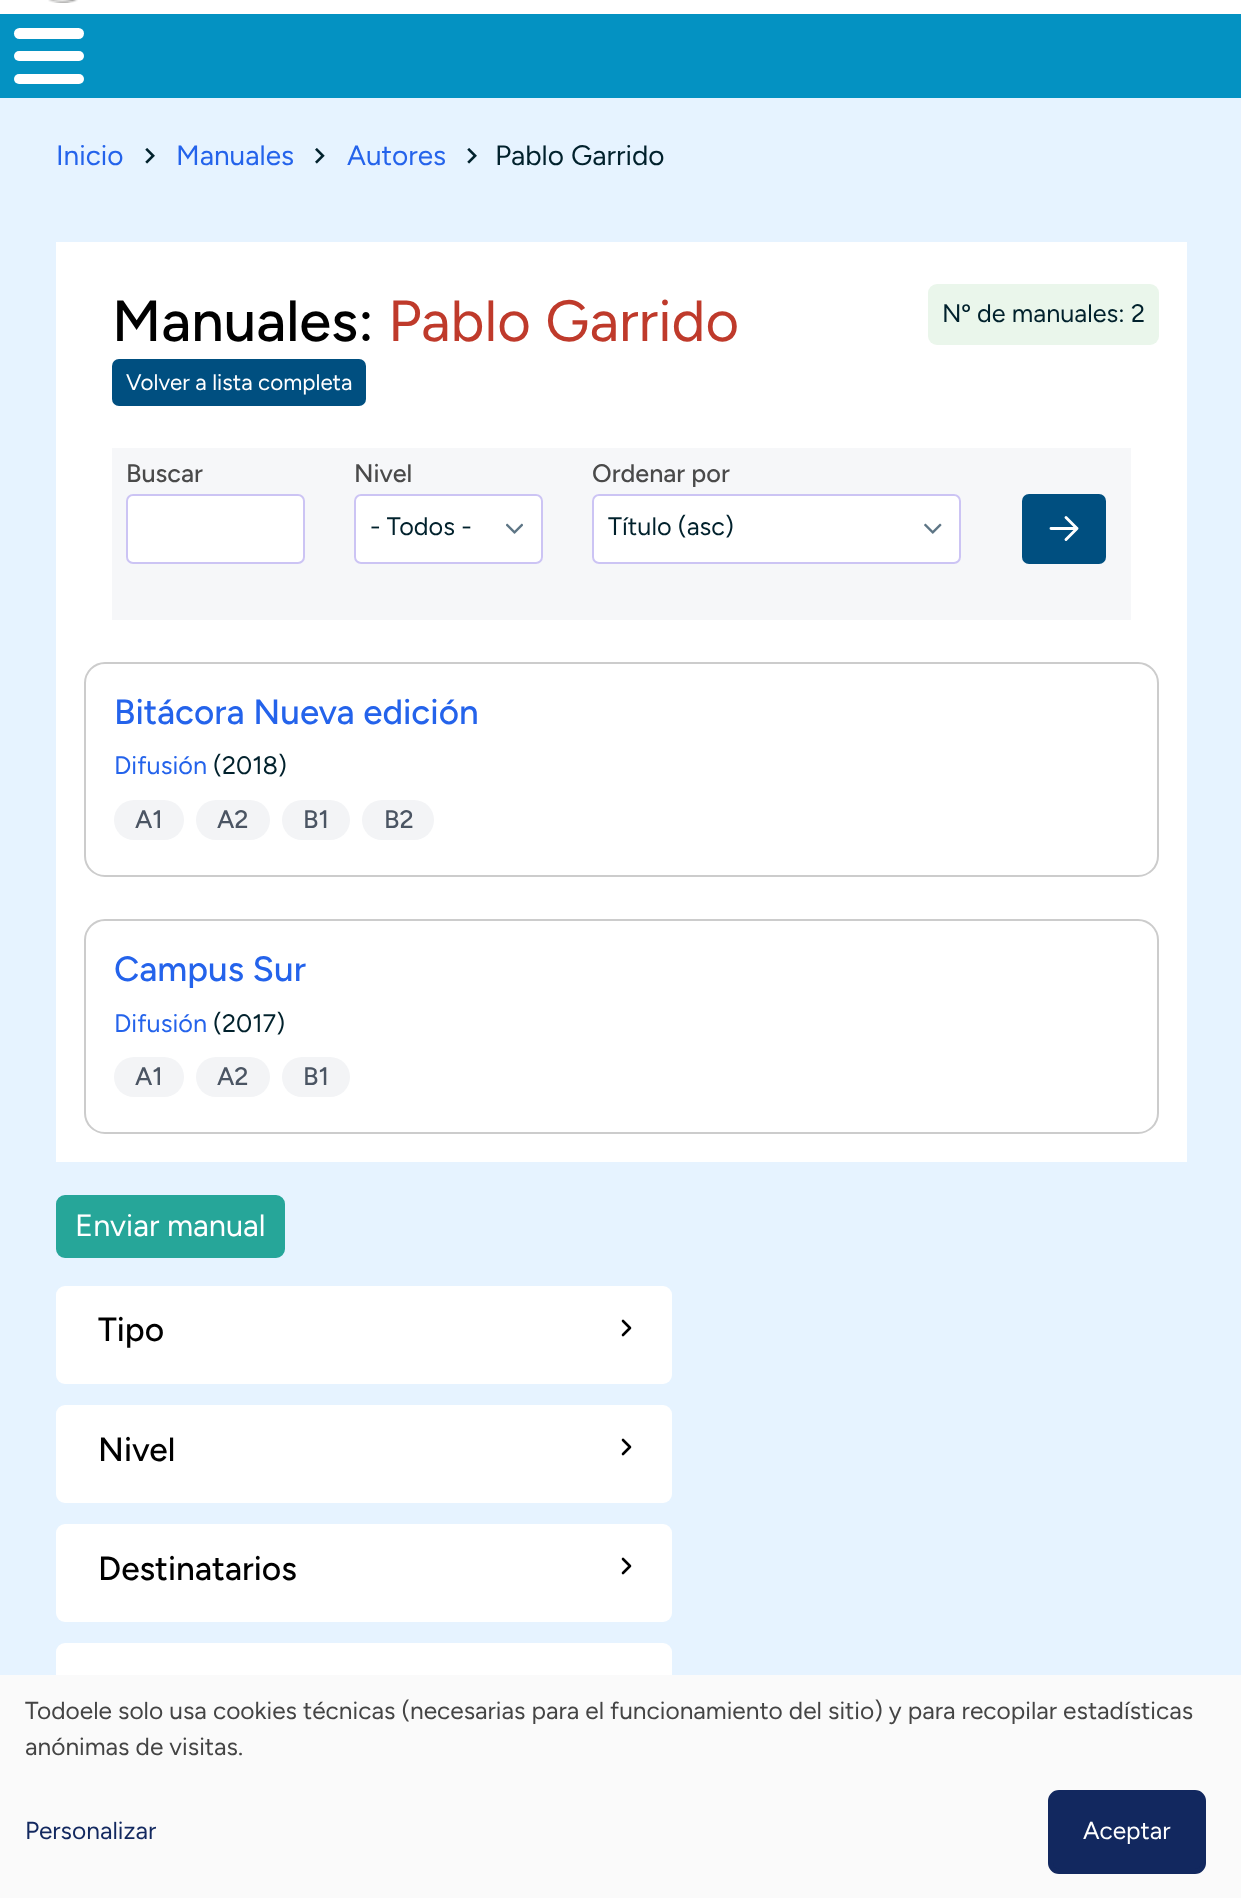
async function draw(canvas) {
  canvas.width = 1241;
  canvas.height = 1898;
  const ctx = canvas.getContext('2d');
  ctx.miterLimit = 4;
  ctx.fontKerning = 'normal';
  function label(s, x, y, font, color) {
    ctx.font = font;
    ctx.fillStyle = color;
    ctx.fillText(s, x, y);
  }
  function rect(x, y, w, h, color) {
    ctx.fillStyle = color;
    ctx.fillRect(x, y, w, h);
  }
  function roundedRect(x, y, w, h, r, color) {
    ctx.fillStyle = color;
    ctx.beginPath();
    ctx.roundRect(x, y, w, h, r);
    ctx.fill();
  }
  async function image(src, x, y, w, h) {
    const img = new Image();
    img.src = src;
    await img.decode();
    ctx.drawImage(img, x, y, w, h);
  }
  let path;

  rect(0, 0, 1241, 1898, '#e6f3ff');
  rect(0, 0, 1241, 14, '#fff');
  await image('assets/img1.png', 48, 0, 30, 3);
  rect(0, 14, 1241, 84, '#0492c2');
  roundedRect(14, 28, 70, 11, 5.5, '#fff');
  roundedRect(14, 51, 70, 10, 5, '#fff');
  roundedRect(14, 74, 70, 10, 5, '#fff');
  label('Inicio', 56, 165, '28px Figtree', '#2463eb');
  await image('assets/img2.png', 145, 148, 10, 16);
  label('Manuales', 176, 165, '28px Figtree', '#2463eb');
  await image('assets/img3.png', 315, 148, 10, 16);
  label('Autores', 347, 165, '28px Figtree', '#2463eb');
  await image('assets/img2.png', 467, 148, 10, 16);
  label('Pablo Garrido', 495, 165, '28px Figtree', '#01212c');
  rect(56, 242, 1131, 920, '#fff');
  label('Manuales:', 112, 341, '500 58px Figtree', '#000');
  label('Pablo Garrido', 388, 341, '58px Figtree', '#bf3a2b');
  roundedRect(928, 284, 231, 61, 9, '#eaf6eb');
  label('Nº de manuales: 2', 942, 322, '25.25px Figtree', '#01212c');
  roundedRect(112, 359, 254, 47, 7, '#004f80');
  label('Volver a lista completa', 126, 390, '22.4px Figtree', '#fff');
  rect(112, 448, 1019, 172, '#f6f7f9');
  label('Buscar', 126, 482, '500 25.25px Figtree', '#4a4a4a');
  ctx.fillStyle = '#fff';
  ctx.beginPath();
  ctx.roundRect(127, 495, 177, 68, 6);
  ctx.fill();
  ctx.strokeStyle = '#ccc4f4';
  ctx.lineWidth = 2;
  ctx.stroke();
  label('Nivel', 354, 482, '500 25.25px Figtree', '#4a4a4a');
  roundedRect(354, 494, 189, 70, 7, '#fff');
  await image('assets/img4.png', 506, 523, 17, 11);
  ctx.beginPath();
  ctx.roundRect(355, 495, 187, 68, 6);
  ctx.stroke();
  label('- Todos -', 370, 535, '25.25px Figtree', '#01212c');
  label('Ordenar por', 592, 482, '500 25.25px Figtree', '#4a4a4a');
  roundedRect(592, 494, 369, 70, 7, '#fff');
  await image('assets/img5.png', 924, 523, 18, 11);
  ctx.beginPath();
  ctx.roundRect(593, 495, 367, 68, 6);
  ctx.stroke();
  label('Título (asc)', 608, 535, '25.25px Figtree', '#01212c');
  roundedRect(1022, 494, 84, 70, 7, '#004f80');
  path = new Path2D('M1066 517.5L1077 528.5M1077 528.5L1066 539.5M1077 528.5H1051');
  ctx.strokeStyle = '#fff';
  ctx.lineWidth = 2.9;
  ctx.lineCap = 'round';
  ctx.lineJoin = 'round';
  ctx.stroke(path);
  ctx.beginPath();
  ctx.roundRect(85, 663, 1073, 213, 20);
  ctx.strokeStyle = '#ccc';
  ctx.lineWidth = 2;
  ctx.lineJoin = 'miter';
  ctx.stroke();
  label('Bitácora Nueva edición', 114, 724, '500 35px Figtree', '#2463eb');
  label('Difusión', 114, 774, '25.25px Figtree', '#2463eb');
  label('(2018)', 213, 774, '25.25px Figtree', '#01212c');
  roundedRect(114, 800, 70, 40, 20, '#f3f4f6');
  label('A1', 135, 828, '500 25.25px Figtree', '#4b5563');
  roundedRect(196, 800, 74, 40, 20, '#f3f4f6');
  label('A2', 217, 828, '500 25.25px Figtree', '#4b5563');
  roundedRect(282, 800, 68, 40, 20, '#f3f4f6');
  label('B1', 303, 828, '500 25.25px Figtree', '#4b5563');
  roundedRect(362, 800, 72, 40, 20, '#f3f4f6');
  label('B2', 384, 828, '500 25.25px Figtree', '#4b5563');
  ctx.beginPath();
  ctx.roundRect(85, 920, 1073, 213, 20);
  ctx.stroke();
  label('Campus Sur', 114, 981, '500 35px Figtree', '#2463eb');
  label('Difusión', 114, 1032, '25.25px Figtree', '#2463eb');
  label('(2017)', 213, 1032, '25.25px Figtree', '#01212c');
  roundedRect(114, 1057, 70, 40, 20, '#f3f4f6');
  label('A1', 135, 1085, '500 25.25px Figtree', '#4b5563');
  roundedRect(196, 1057, 74, 40, 20, '#f3f4f6');
  label('A2', 217, 1085, '500 25.25px Figtree', '#4b5563');
  roundedRect(282, 1057, 68, 40, 20, '#f3f4f6');
  label('B1', 303, 1085, '500 25.25px Figtree', '#4b5563');
  ctx.fillStyle = '#26a699';
  ctx.beginPath();
  ctx.roundRect(57, 1196, 227, 61, 8);
  ctx.fill();
  ctx.strokeStyle = '#26a69a';
  ctx.stroke();
  label('Enviar manual', 75, 1236, '30.75px Figtree', '#fff');
  roundedRect(56, 1286, 616, 98, 9, '#fff');
  path = new Path2D('M623 1321L630 1328L623 1335');
  ctx.strokeStyle = '#000';
  ctx.lineWidth = 2.6;
  ctx.lineJoin = 'round';
  ctx.stroke(path);
  label('Tipo', 98, 1341, '500 33.5px Figtree', '#000');
  roundedRect(56, 1405, 616, 98, 9, '#fff');
  path = new Path2D('M623 1440L630 1447L623 1454');
  ctx.stroke(path);
  label('Nivel', 98, 1461, '500 33.5px Figtree', '#000');
  roundedRect(56, 1524, 616, 98, 9, '#fff');
  path = new Path2D('M623 1559L630 1566L623 1573');
  ctx.stroke(path);
  label('Destinatarios', 98, 1580, '500 33.5px Figtree', '#000');
  roundedRect(56, 1643, 616, 100, 9, '#fff');
  rect(0, 1675, 1241, 223, '#fafafa');
  label('Todoele solo usa cookies técnicas (necesarias para el funcionamiento del sitio) y para recopilar estadísticas', 25, 1719, '24.5px Figtree', '#444');
  label('anónimas de visitas.', 25, 1755, '24.5px Figtree', '#444');
  label('Personalizar', 25, 1839, '24.5px Figtree', '#12285f');
  ctx.beginPath();
  ctx.roundRect(1050.5, 1792.5, 153, 79, 8.5);
  ctx.fill();
  ctx.strokeStyle = '#12285f';
  ctx.lineWidth = 5;
  ctx.lineJoin = 'miter';
  ctx.stroke();
  label('Aceptar', 1083, 1839, '24.5px Figtree', '#fff');
}

draw(document.querySelector('canvas'));
